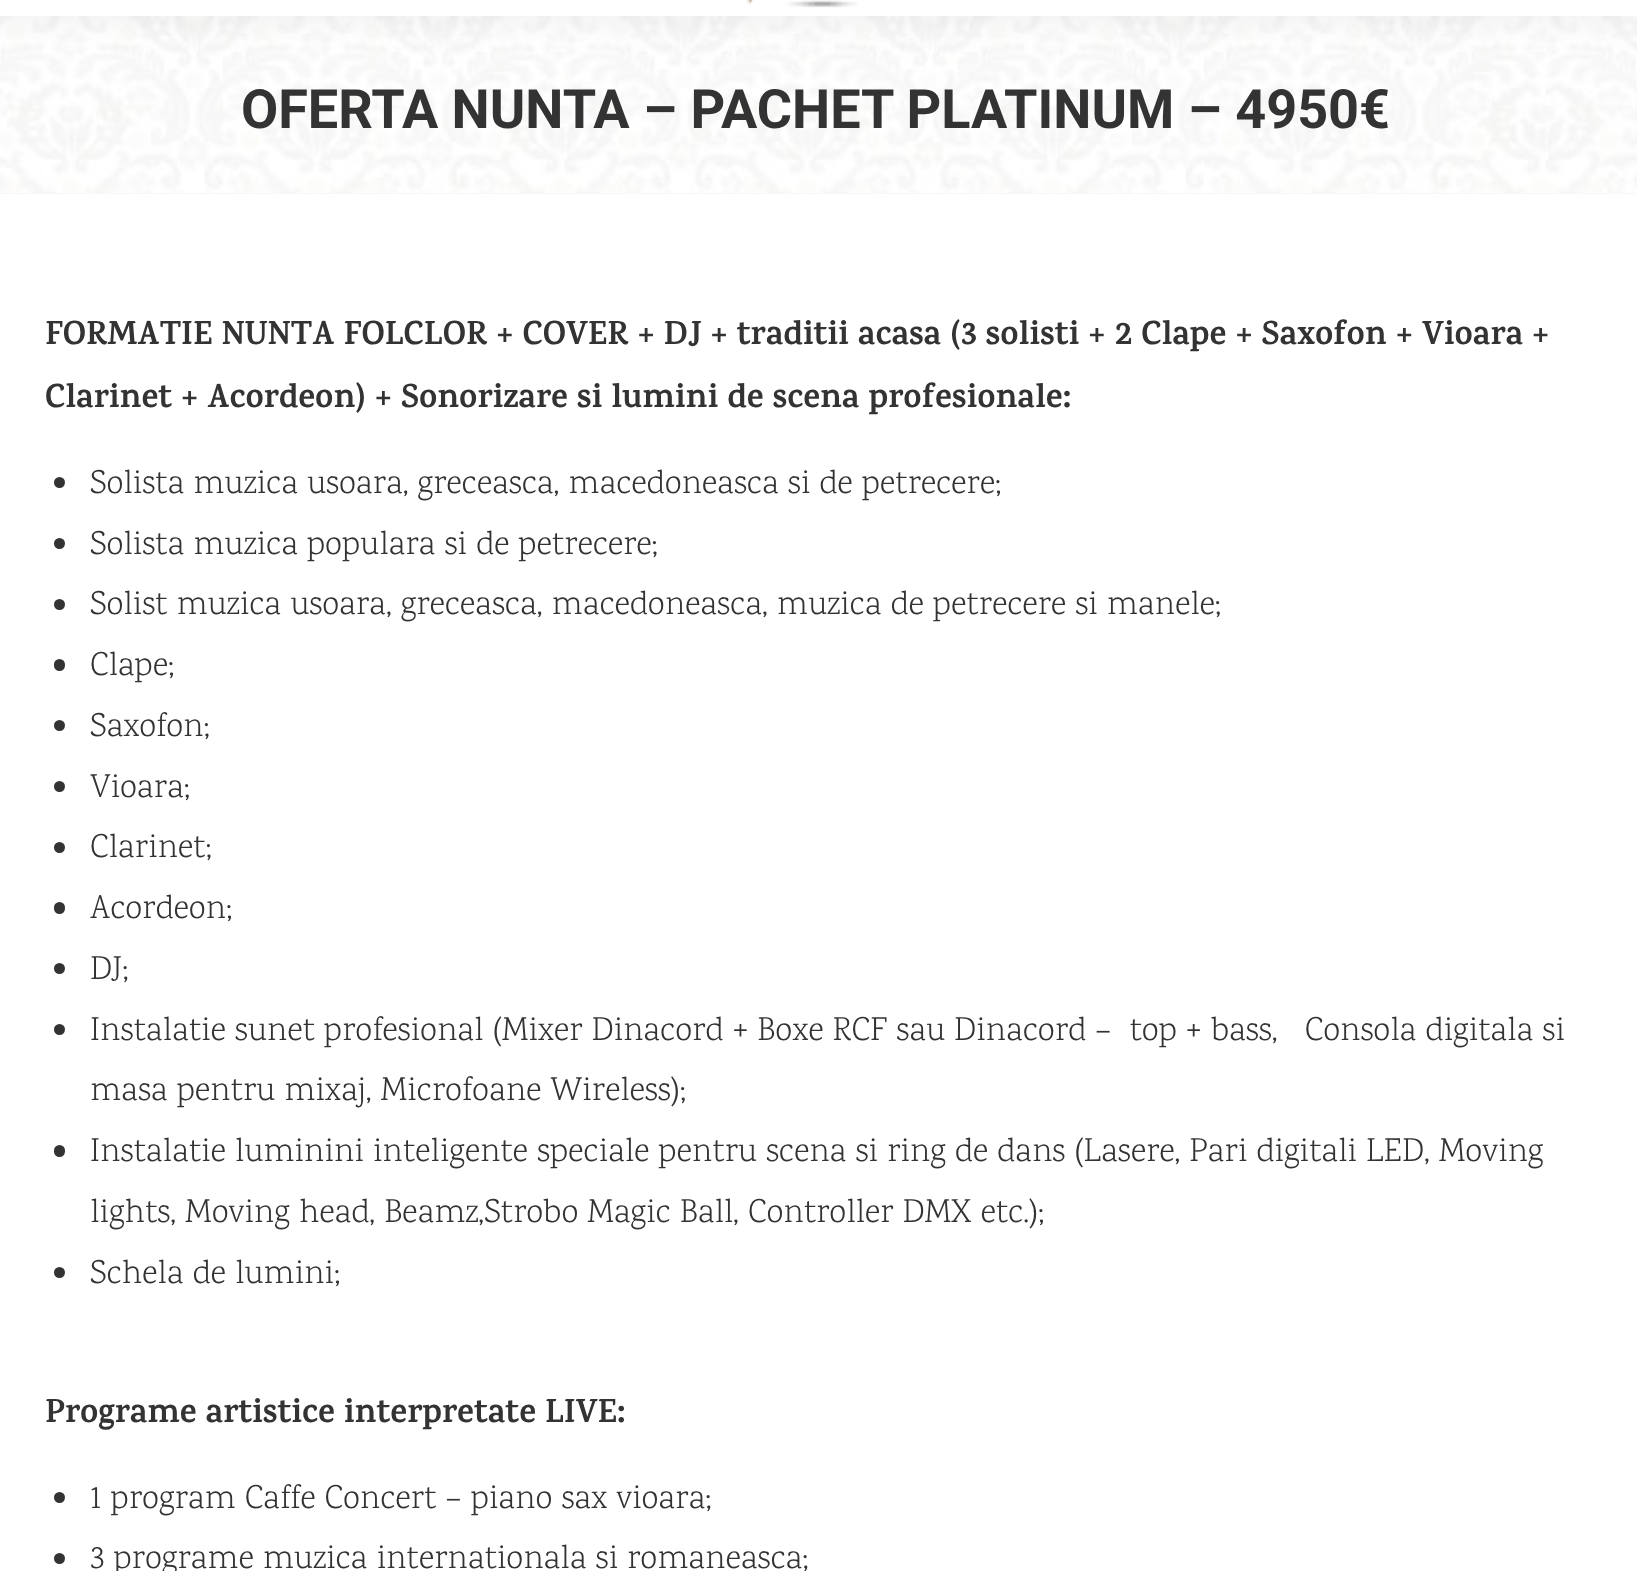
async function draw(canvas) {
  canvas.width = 1637;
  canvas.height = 1571;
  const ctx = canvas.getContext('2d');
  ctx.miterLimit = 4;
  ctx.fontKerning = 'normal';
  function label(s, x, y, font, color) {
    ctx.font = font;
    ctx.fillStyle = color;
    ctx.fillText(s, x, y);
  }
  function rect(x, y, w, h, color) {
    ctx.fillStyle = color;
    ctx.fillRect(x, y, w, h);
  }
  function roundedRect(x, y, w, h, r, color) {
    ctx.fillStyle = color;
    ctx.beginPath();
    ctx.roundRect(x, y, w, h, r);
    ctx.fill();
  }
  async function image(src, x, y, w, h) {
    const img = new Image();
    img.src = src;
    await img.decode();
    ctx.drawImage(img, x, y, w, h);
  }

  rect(0, 0, 1637, 1571, '#fff');
  await image('assets/img2.png', 0, 16, 1637, 177);
  ctx.fillStyle = '#00000012';
  ctx.filter = 'blur(17px)';
  ctx.beginPath();
  ctx.rect(-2, -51, 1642, 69);
  ctx.fill();
  ctx.filter = 'none';
  rect(0, 0, 1637, 16, '#fff');
  await image('assets/img1.png', 746, 0, 112, 8);
  rect(0, 193, 1637, 1, '#f7f7f7');
  label('OFERTA NUNTA – PACHET PLATINUM – 4950€', 241, 128, 'bold 54px Roboto', '#333');
  label('FORMATIE NUNTA FOLCLOR + COVER + DJ + traditii acasa (3 solisti + 2 Clape + Saxofon + Vioara +', 45, 344, 'bold 33.75px Karma', '#333');
  label('Clarinet + Acordeon) + Sonorizare si lumini de scena profesionale:', 45, 407, 'bold 33.75px Karma', '#333');
  ctx.beginPath();
  ctx.arc(59.5, 482.5, 5.5, 0, 2 * Math.PI);
  ctx.fill();
  label('Solista muzica usoara, greceasca, macedoneasca si de petrecere;', 90, 493, '300 33.75px Karma', '#333');
  ctx.beginPath();
  ctx.arc(59.5, 543.5, 5.5, 0, 2 * Math.PI);
  ctx.fill();
  label('Solista muzica populara si de petrecere;', 90, 554, '300 33.75px Karma', '#333');
  ctx.beginPath();
  ctx.arc(59.5, 604.5, 5.5, 0, 2 * Math.PI);
  ctx.fill();
  label('Solist muzica usoara, greceasca, macedoneasca, muzica de petrecere si manele;', 90, 614, '300 33.75px Karma', '#333');
  roundedRect(54, 659, 11, 12, 5.5, '#333');
  label('Clape;', 90, 675, '300 33.75px Karma', '#333');
  ctx.beginPath();
  ctx.arc(59.5, 725.5, 5.5, 0, 2 * Math.PI);
  ctx.fill();
  label('Saxofon;', 90, 736, '300 33.75px Karma', '#333');
  ctx.beginPath();
  ctx.arc(59.5, 786.5, 5.5, 0, 2 * Math.PI);
  ctx.fill();
  label('Vioara;', 90, 797, '300 33.75px Karma', '#333');
  ctx.beginPath();
  ctx.arc(59.5, 847.5, 5.5, 0, 2 * Math.PI);
  ctx.fill();
  label('Clarinet;', 90, 857, '300 33.75px Karma', '#333');
  roundedRect(54, 902, 11, 12, 5.5, '#333');
  label('Acordeon;', 90, 918, '300 33.75px Karma', '#333');
  ctx.beginPath();
  ctx.arc(59.5, 968.5, 5.5, 0, 2 * Math.PI);
  ctx.fill();
  label('DJ;', 90, 979, '300 33.75px Karma', '#333');
  ctx.beginPath();
  ctx.arc(59.5, 1029.5, 5.5, 0, 2 * Math.PI);
  ctx.fill();
  label('Instalatie sunet profesional (Mixer Dinacord + Boxe RCF sau Dinacord –  top + bass,   Consola digitala si', 90, 1040, '300 33.75px Karma', '#333');
  label('masa pentru mixaj, Microfoane Wireless);', 90, 1100, '300 33.75px Karma', '#333');
  roundedRect(54, 1145, 11, 12, 5.5, '#333');
  label('Instalatie luminini inteligente speciale pentru scena si ring de dans (Lasere, Pari digitali LED, Moving', 90, 1161, '300 33.75px Karma', '#333');
  label('lights, Moving head, Beamz,Strobo Magic Ball, Controller DMX etc.);', 90, 1222, '300 33.75px Karma', '#333');
  ctx.beginPath();
  ctx.arc(59.5, 1272.5, 5.5, 0, 2 * Math.PI);
  ctx.fill();
  label('Schela de lumini;', 90, 1283, '300 33.75px Karma', '#333');
  label('Programe artistice interpretate LIVE:', 45, 1422, 'bold 33.75px Karma', '#333');
  ctx.beginPath();
  ctx.arc(59.5, 1497.5, 5.5, 0, 2 * Math.PI);
  ctx.fill();
  label('1 program Caffe Concert – piano sax vioara;', 90, 1508, '300 33.75px Karma', '#333');
  ctx.beginPath();
  ctx.arc(59.5, 1558.5, 5.5, 0, 2 * Math.PI);
  ctx.fill();
  label('3 programe muzica internationala si romaneasca;', 90, 1568, '300 33.75px Karma', '#333');
}

draw(document.querySelector('canvas'));
